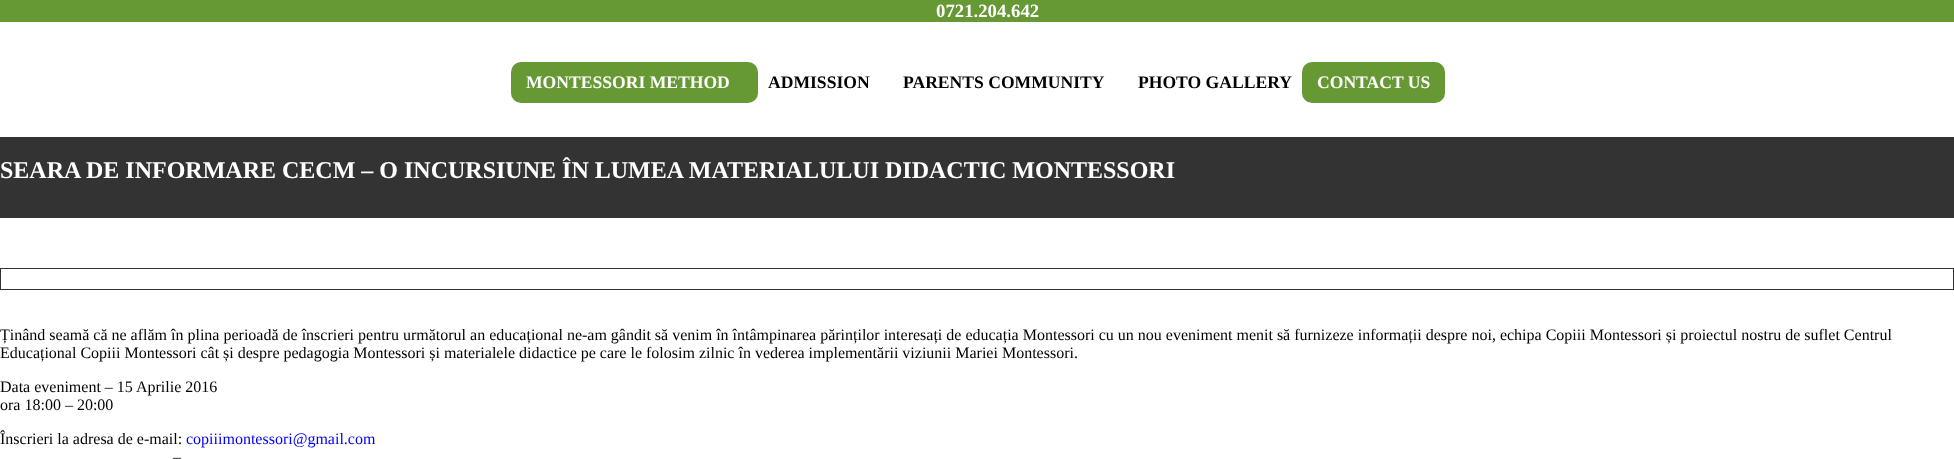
async function draw(canvas) {
  canvas.width = 1954;
  canvas.height = 459;
  const ctx = canvas.getContext('2d');
  ctx.miterLimit = 4;
  ctx.fontKerning = 'normal';
  function label(s, x, y, font, color) {
    ctx.font = font;
    ctx.fillStyle = color;
    ctx.fillText(s, x, y);
  }
  function rect(x, y, w, h, color) {
    ctx.fillStyle = color;
    ctx.fillRect(x, y, w, h);
  }
  function roundedRect(x, y, w, h, r, color) {
    ctx.fillStyle = color;
    ctx.beginPath();
    ctx.roundRect(x, y, w, h, r);
    ctx.fill();
  }

  rect(0, 0, 1954, 459, '#fff');
  rect(0, 0, 1954, 22, '#693');
  label('0721.204.642', 936, 17, 'bold 18.75px Liberation Serif', '#fff');
  roundedRect(511, 62, 247, 41, 10, '#693');
  label('MONTESSORI METHOD', 526, 88, 'bold 17.6px Liberation Serif', '#fff');
  label('ADMISSION', 768, 88, 'bold 17.6px Liberation Serif', '#000');
  label('PARENTS COMMUNITY', 903, 88, 'bold 17.6px Liberation Serif', '#000');
  label('PHOTO GALLERY', 1138, 88, 'bold 17.6px Liberation Serif', '#000');
  roundedRect(1302, 62, 143, 41, 10, '#693');
  label('CONTACT US', 1317, 88, 'bold 17.6px Liberation Serif', '#fff');
  rect(0, 137, 1954, 81, '#333');
  label('SEARA DE INFORMARE CECM – O INCURSIUNE ÎN LUMEA MATERIALULUI DIDACTIC MONTESSORI', 0, 178, 'bold 24px Liberation Serif', '#fff');
  ctx.strokeStyle = '#333';
  ctx.strokeRect(0.5, 268.5, 1953, 21);
  label('Ținând seamă că ne aflăm în plina perioadă de înscrieri pentru următorul an educațional ne-am gândit să venim în întâmpinarea părinților interesați de educația Montessori cu un nou eveniment menit să furnizeze informații despre noi, echipa Copiii Montessori și proiectul nostru de suflet Centrul', 0, 340, '16px Liberation Serif', '#000');
  label('Educațional Copiii Montessori cât și despre pedagogia Montessori și materialele didactice pe care le folosim zilnic în vederea implementării viziunii Mariei Montessori.', 0, 358, '16px Liberation Serif', '#000');
  label('Data eveniment – 15 Aprilie 2016', 0, 392, '16px Liberation Serif', '#000');
  label('ora 18:00 – 20:00', 0, 410, '16px Liberation Serif', '#000');
  label('Înscrieri la adresa de e-mail:', 0, 444, '16px Liberation Serif', '#000');
  label('copiiimontessori@gmail.com', 186, 444, '16px Liberation Serif', '#00e');
  label('–', 173, 462, '16px Liberation Serif', '#000');
}

draw(document.querySelector('canvas'));
